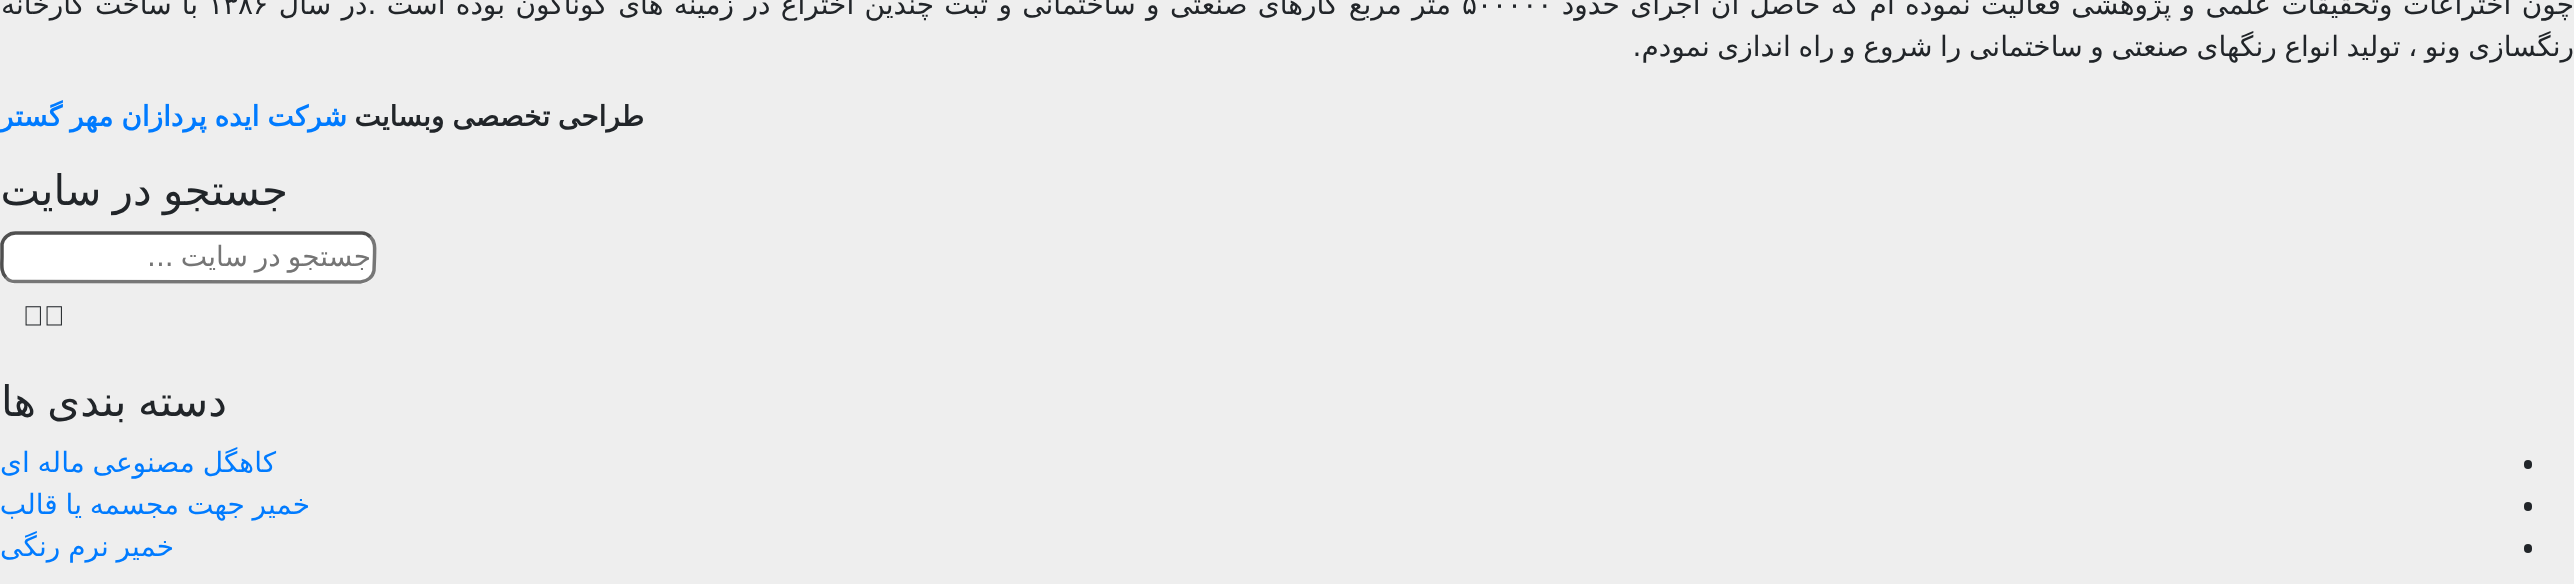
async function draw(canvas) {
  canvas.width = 2574;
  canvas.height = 584;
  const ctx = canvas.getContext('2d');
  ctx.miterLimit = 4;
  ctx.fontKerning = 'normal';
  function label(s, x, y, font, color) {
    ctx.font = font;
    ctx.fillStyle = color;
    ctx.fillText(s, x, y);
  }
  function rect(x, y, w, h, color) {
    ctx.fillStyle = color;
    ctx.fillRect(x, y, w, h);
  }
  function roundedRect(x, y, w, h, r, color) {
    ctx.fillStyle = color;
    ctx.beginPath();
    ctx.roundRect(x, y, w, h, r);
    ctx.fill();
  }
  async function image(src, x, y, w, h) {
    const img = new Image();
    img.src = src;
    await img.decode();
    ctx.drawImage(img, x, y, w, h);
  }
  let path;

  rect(0, 0, 2574, 584, '#eee');
  ctx.wordSpacing = '1.5px';
  ctx.direction = 'rtl';
  label('چون اختراعات وتحقیقات علمی و پژوهشی فعالیت نموده ام که حاصل آن اجرای حدود', 2574, 14, '28px DejaVu Sans', '#212529');
  ctx.wordSpacing = '0px';
  ctx.direction = 'ltr';
  label('۵۰۰۰۰۰', 1462, 14, '28px DejaVu Sans', '#212529');
  ctx.wordSpacing = '1.4px';
  ctx.direction = 'rtl';
  label('متر مربع کارهای صنعتی و ساختمانی و ثبت چندین اختراع در زمینه های گوناگون بوده است .در سال', 1451, 14, '28px DejaVu Sans', '#212529');
  ctx.wordSpacing = '0px';
  ctx.direction = 'ltr';
  label('۱۳۸۶', 208, 14, '28px DejaVu Sans', '#212529');
  ctx.wordSpacing = '1px';
  ctx.direction = 'rtl';
  label('با ساخت کارخانه', 198, 14, '28px DejaVu Sans', '#212529');
  ctx.wordSpacing = '-1.25px';
  label('رنگسازی ونو ، تولید انواع رنگهای صنعتی و ساختمانی را شروع و راه اندازی نمودم.', 2574, 56, '28px DejaVu Sans', '#212529');
  ctx.wordSpacing = '-1px';
  label('طراحی تخصصی وبسایت', 644, 126, 'bold 28px DejaVu Sans', '#212529');
  label('شرکت ایده پردازان مهر گستر', 347, 126, 'bold 28px DejaVu Sans', '#007bff');
  ctx.wordSpacing = '-2px';
  label('جستجو در سایت', 288, 205, '42px DejaVu Sans', '#212529');
  roundedRect(0, 231, 376, 53, 16, '#fff');
  path = new Path2D('M370.5 237C376 242.5 374.5 250 374.5 257L374 270.5C373 277 367 281.5 360.5 282L14.5 281.5C11 281.5 8 280 6 277.5');
  ctx.strokeStyle = '#767676';
  ctx.lineWidth = 3.5;
  ctx.stroke(path);
  path = new Path2D('M6 277.5C.5 272 2 264.5 2 257V244C3.5 237.5 9 233 15.5 233H362C365 233 368 234.5 370.5 237');
  ctx.strokeStyle = '#4f4f4f';
  ctx.stroke(path);
  ctx.save();
  ctx.beginPath();
  ctx.rect(33, 240, 336, 33);
  ctx.clip();
  label('جستجو در سایت ...', 371, 266, '28px DejaVu Sans', '#757575');
  ctx.restore();
  await image('assets/img1.png', 46, 306, 16, 20);
  await image('assets/img1.png', 25, 306, 16, 20);
  label('دسته بندی ها', 227, 416, '42px DejaVu Sans', '#212529');
  roundedRect(2524, 460, 8, 9, 4, '#212529');
  ctx.wordSpacing = '-1px';
  label('کاهگل مصنوعی ماله ای', 276, 472, '28px DejaVu Sans', '#007bff');
  roundedRect(2524, 502, 8, 9, 4, '#212529');
  label('خمیر جهت مجسمه یا قالب', 310, 514, '28px DejaVu Sans', '#007bff');
  roundedRect(2524, 544, 8, 9, 4, '#212529');
  label('خمیر نرم رنگی', 174, 556, '28px DejaVu Sans', '#007bff');
}

draw(document.querySelector('canvas'));
